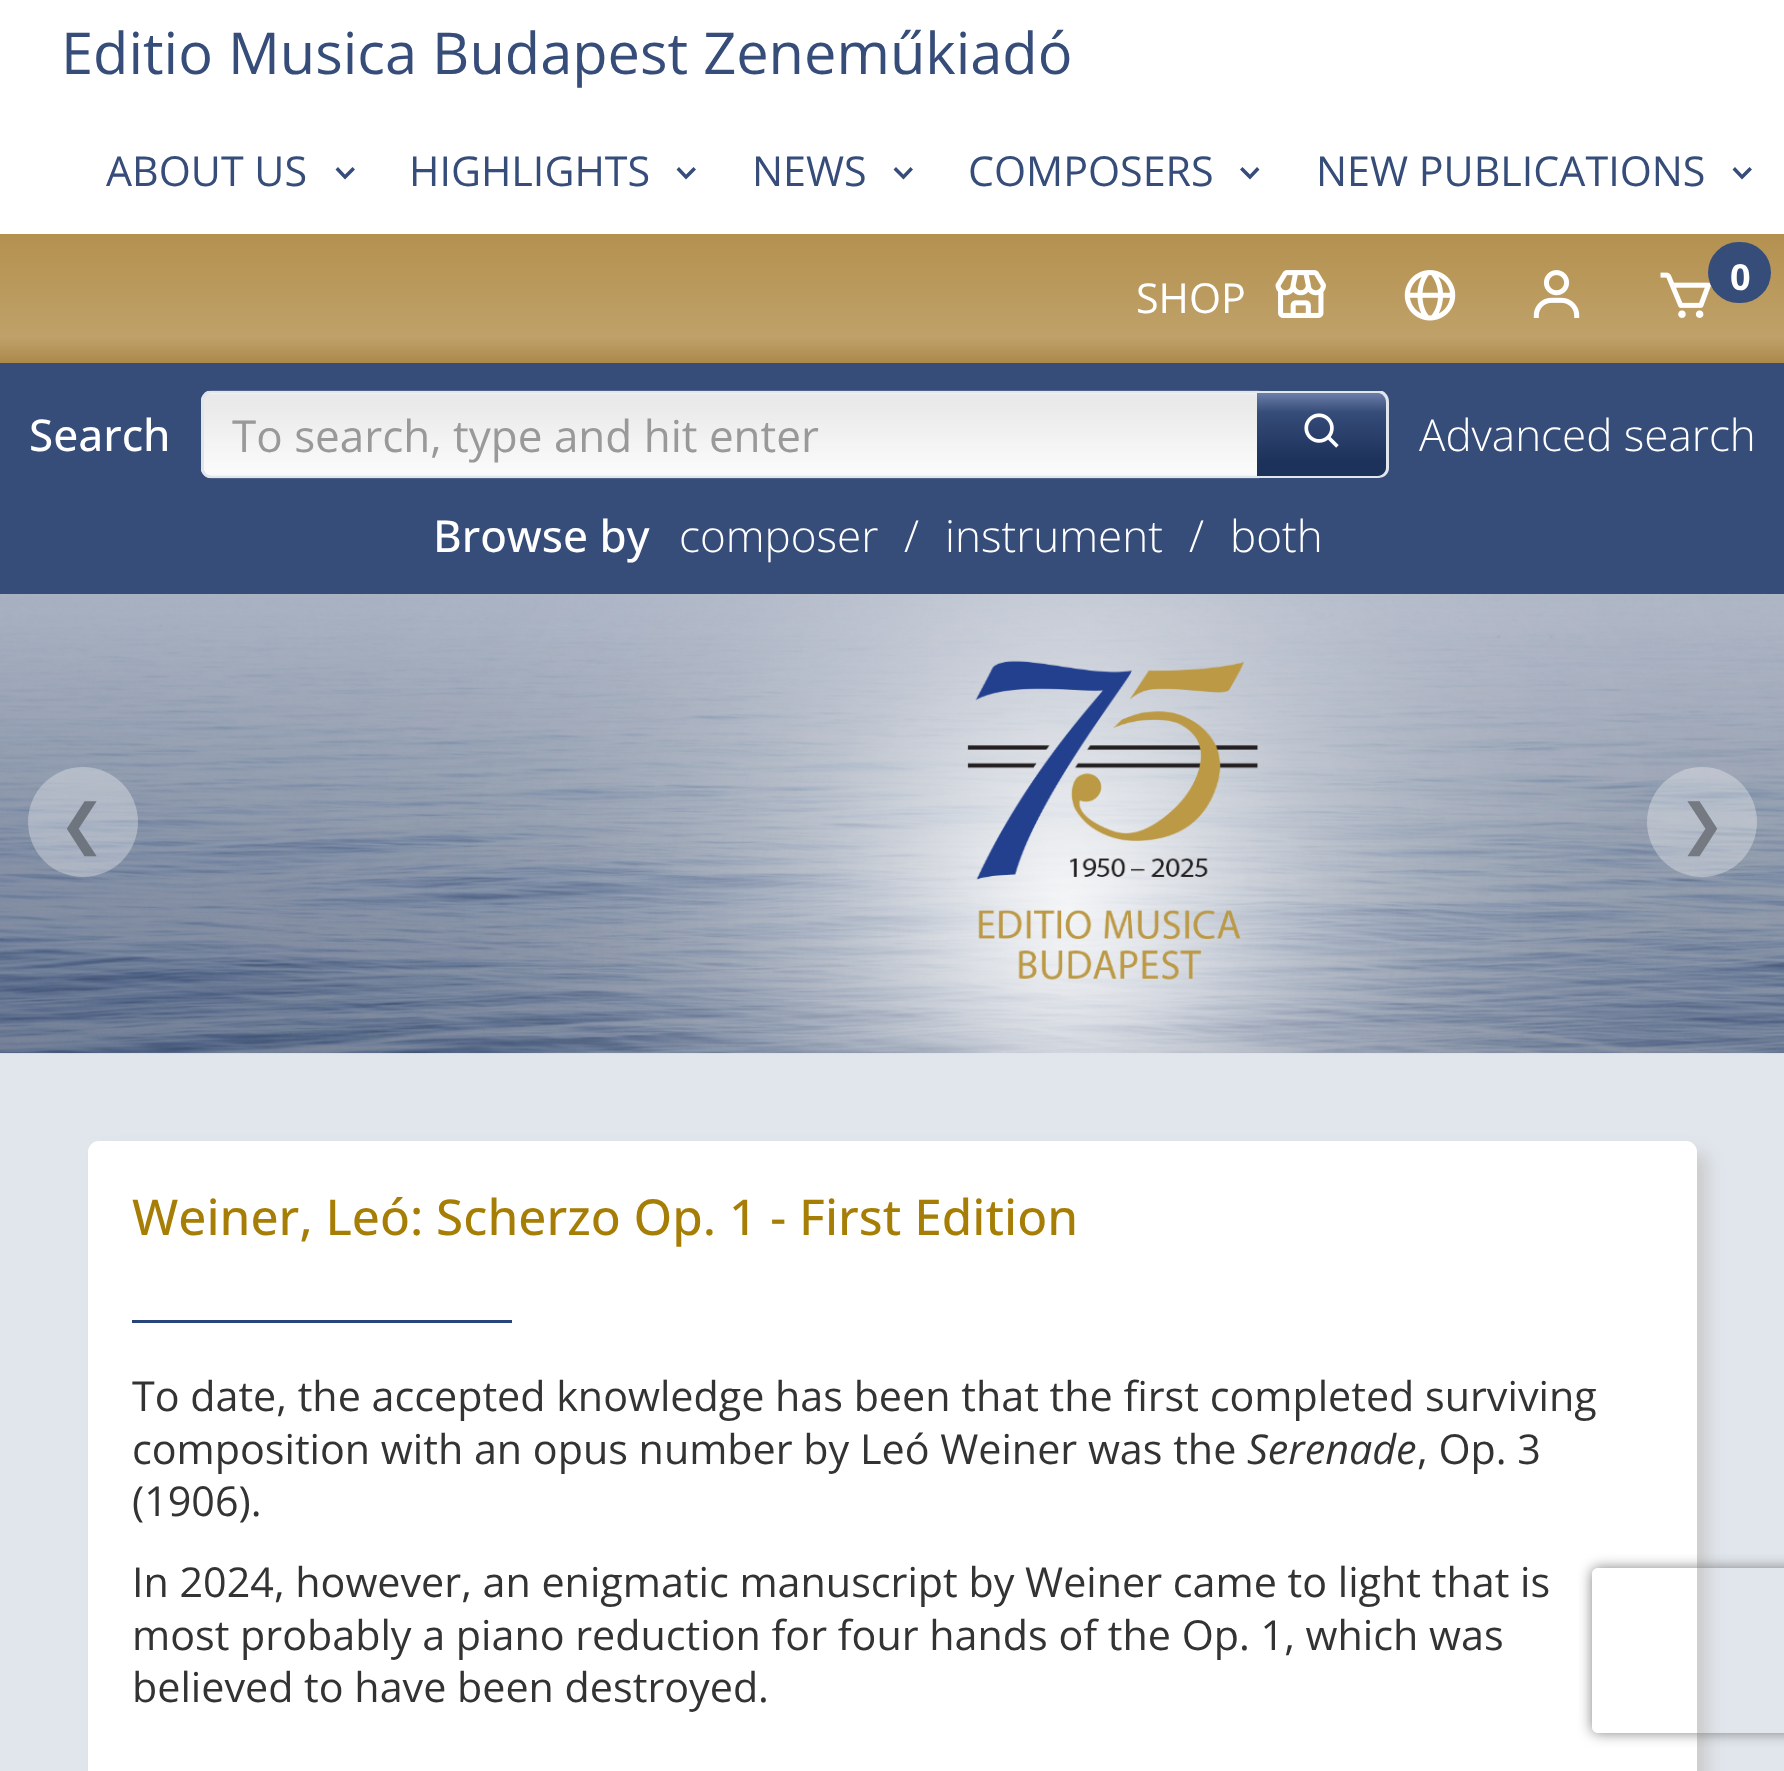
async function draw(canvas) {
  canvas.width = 1784;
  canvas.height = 1771;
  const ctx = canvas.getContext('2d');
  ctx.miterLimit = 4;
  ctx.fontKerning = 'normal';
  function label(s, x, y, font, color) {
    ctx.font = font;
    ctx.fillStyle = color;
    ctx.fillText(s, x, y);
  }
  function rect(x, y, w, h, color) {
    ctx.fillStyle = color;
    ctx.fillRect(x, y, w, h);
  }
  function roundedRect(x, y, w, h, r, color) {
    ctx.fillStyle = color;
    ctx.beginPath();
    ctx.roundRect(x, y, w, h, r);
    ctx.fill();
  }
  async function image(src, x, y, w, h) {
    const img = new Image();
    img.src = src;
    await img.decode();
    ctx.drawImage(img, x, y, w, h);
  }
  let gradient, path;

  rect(0, 0, 1784, 1771, '#fff');
  label('Editio Musica Budapest Zeneműkiadó', 61, 74, '57.75px Open Sans', '#364c79');
  label('ABOUT US', 106, 186, '41.25px Open Sans', '#364c79');
  path = new Path2D('M352.5 167L345 174.5L338 167L335.5 169.5L345 179.5L355 169.5Z');
  ctx.fill(path);
  label('HIGHLIGHTS', 409, 186, '41.25px Open Sans', '#364c79');
  path = new Path2D('M693.5 167L686 174.5L679 167L676.5 169.5L686 179.5L696 169.5Z');
  ctx.fill(path);
  label('NEWS', 752, 186, '41.25px Open Sans', '#364c79');
  path = new Path2D('M910.5 167L903.5 174.5L896 167L893.5 169.5L903.5 179.5L913 169.5Z');
  ctx.fill(path);
  label('COMPOSERS', 968, 186, '41.25px Open Sans', '#364c79');
  path = new Path2D('M1257 167L1250 174.5L1242.5 167L1240 169.5L1250 179.5L1259.5 169.5Z');
  ctx.fill(path);
  label('NEW PUBLICATIONS', 1316, 186, '41.25px Open Sans', '#364c79');
  path = new Path2D('M1749.5 167L1742 174.5L1735 167L1732.5 169.5L1742 179.5L1752 169.5Z');
  ctx.fill(path);
  gradient = ctx.createLinearGradient(892, 234, 892, 363);
  gradient.addColorStop(0, '#b4914f');
  gradient.addColorStop(0.8, '#bfa169');
  gradient.addColorStop(1, '#ab894b');
  ctx.fillStyle = gradient;
  ctx.fillRect(0, 234, 1784, 129);
  label('SHOP', 1136, 313, '41.25px Open Sans', '#fff');
  await image('assets/img1.png', 1275, 270, 51, 48);
  await image('assets/img2.png', 1404, 270, 52, 51);
  await image('assets/img3.png', 1533, 270, 47, 48);
  await image('assets/img4.png', 1660, 272, 51, 46);
  roundedRect(1708, 242, 63, 61, 30.5, '#364c79');
  label('0', 1730, 290, 'bold 36px Open Sans', '#fff');
  rect(0, 363, 1784, 231, '#364c79');
  label('Search', 29, 451, '500 44px Open Sans', '#fff');
  await image('assets/img5.png', 201, 390, 1059, 89);
  ctx.save();
  ctx.beginPath();
  ctx.rect(201, 391, 1188, 88);
  ctx.clip();
  ctx.fillStyle = '#e1e6ed';
  path = new Path2D('M212 390H1260V478H212C206 478 201 474 201 468V402C201 395 206 390 212 390ZM212 393H1260V476H212C207 476 204 472 204 468V402C204 397 207 393 212 393Z');
  ctx.fill(path, 'evenodd');
  ctx.restore();
  label('To search, type and hit enter', 232, 452, '44px Open Sans', '#999');
  gradient = ctx.createLinearGradient(1321, 393, 1321, 476);
  gradient.addColorStop(0, '#6d7eaa');
  gradient.addColorStop(0.23, '#364c79');
  gradient.addColorStop(0.82, '#1c325a');
  ctx.fillStyle = gradient;
  ctx.beginPath();
  ctx.roundRect(1257, 393, 129, 83, [0, 8, 8, 0]);
  ctx.fill();
  ctx.save();
  ctx.beginPath();
  ctx.rect(201, 391, 1188, 88);
  ctx.clip();
  ctx.fillStyle = '#e1e6ed';
  path = new Path2D('M1257 390H1378C1384 390 1389 395 1389 402V468C1389 474 1384 478 1378 478H1257ZM1257 393H1378C1382 393 1386 397 1386 402V468C1386 472 1382 476 1378 476H1257Z');
  ctx.fill(path, 'evenodd');
  ctx.restore();
  await image('assets/img6.png', 1304, 413, 35, 35);
  label('Advanced search', 1419, 451, '300 44px Open Sans', '#fff');
  label('Browse by', 433, 552, '500 44px Open Sans', '#fff');
  label('composer', 679, 552, '300 44px Open Sans', '#fff');
  label('/', 904, 552, '300 44px Open Sans', '#fff');
  label('instrument', 945, 552, '300 44px Open Sans', '#fff');
  label('/', 1189, 552, '300 44px Open Sans', '#fff');
  label('both', 1230, 552, '300 44px Open Sans', '#fff');
  rect(0, 1053, 1784, 718, '#e1e6ed');
  await image('assets/img7.png', 0, 594, 1784, 460);
  ctx.fillStyle = '#ffffff52';
  ctx.beginPath();
  ctx.arc(83, 822, 55, 0, 2 * Math.PI);
  ctx.fill();
  label('❮', 59, 843, '55px DejaVu Sans', '#6f757f');
  ctx.fillStyle = '#ffffff52';
  ctx.beginPath();
  ctx.arc(1702, 822, 55, 0, 2 * Math.PI);
  ctx.fill();
  label('❯', 1679, 843, '55px DejaVu Sans', '#757a82');
  ctx.fillStyle = '#ccc';
  ctx.filter = 'blur(8px)';
  ctx.beginPath();
  ctx.roundRect(99, 1152, 1609, 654, 11);
  ctx.fill();
  ctx.filter = 'none';
  roundedRect(88, 1141, 1609, 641, 11, '#fff');
  label('Weiner, Leó: Scherzo Op. 1 - First Edition', 132, 1235, '500 49.5px Open Sans', '#a77e05');
  rect(132, 1320, 380, 3, '#28447a');
  label('To date, the accepted knowledge has been that the first completed surviving', 132, 1411, '41.25px Open Sans', '#333');
  label('composition with an opus number by Leó Weiner was the', 132, 1464, '41.25px Open Sans', '#333');
  label('Serenade', 1247, 1464, 'italic 41.25px Open Sans', '#333');
  label(', Op. 3', 1417, 1464, '41.25px Open Sans', '#333');
  label('(1906).', 132, 1516, '41.25px Open Sans', '#333');
  label('In 2024, however, an enigmatic manuscript by Weiner came to light that is', 132, 1597, '41.25px Open Sans', '#333');
  label('most probably a piano reduction for four hands of the Op. 1, which was', 132, 1650, '41.25px Open Sans', '#333');
  label('believed to have been destroyed.', 132, 1702, '41.25px Open Sans', '#333');
  ctx.save();
  path = new Path2D('M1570 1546H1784V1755H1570ZM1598 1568H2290C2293.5 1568 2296 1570.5 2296 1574V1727C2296 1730.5 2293.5 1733 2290 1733H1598C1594.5 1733 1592 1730.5 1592 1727V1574C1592 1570.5 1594.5 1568 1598 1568Z');
  ctx.clip(path, 'evenodd');
  ctx.fillStyle = '#808080';
  ctx.filter = 'blur(7px)';
  ctx.beginPath();
  ctx.roundRect(1592, 1568, 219, 165, 6);
  ctx.fill();
  ctx.filter = 'none';
  ctx.restore();
}

draw(document.querySelector('canvas'));
